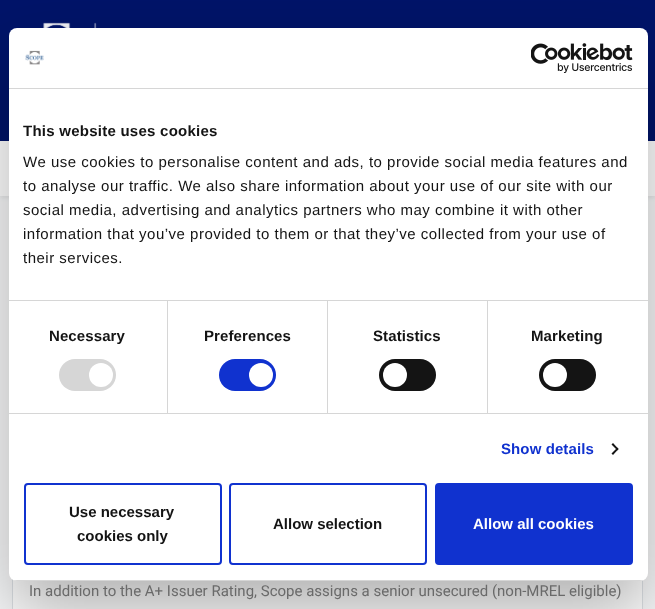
async function draw(canvas) {
  canvas.width = 655;
  canvas.height = 609;
  const ctx = canvas.getContext('2d');
  ctx.miterLimit = 4;
  ctx.fontKerning = 'normal';
  function label(s, x, y, font, color) {
    ctx.font = font;
    ctx.fillStyle = color;
    ctx.fillText(s, x, y);
  }
  function rect(x, y, w, h, color) {
    ctx.fillStyle = color;
    ctx.fillRect(x, y, w, h);
  }
  function roundedRect(x, y, w, h, r, color) {
    ctx.fillStyle = color;
    ctx.beginPath();
    ctx.roundRect(x, y, w, h, r);
    ctx.fill();
  }
  async function image(src, x, y, w, h) {
    const img = new Image();
    img.src = src;
    await img.decode();
    ctx.drawImage(img, x, y, w, h);
  }
  let path;

  rect(0, 0, 655, 609, '#f8f9fa');
  ctx.fillStyle = '#00000012';
  ctx.filter = 'blur(2px)';
  ctx.beginPath();
  ctx.rect(0, 2, 655, 196);
  ctx.fill();
  ctx.filter = 'none';
  rect(0, 0, 655, 141, '#001469');
  await image('assets/img3.png', 43, 22, 54, 6);
  rect(0, 141, 655, 55, '#fff');
  rect(13, 579, 629, 30, '#fff');
  ctx.strokeStyle = '#dee2e6';
  ctx.strokeRect(12.5, 210.5, 630, 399);
  ctx.fillStyle = '#0000004d';
  ctx.filter = 'blur(34px)';
  ctx.beginPath();
  ctx.roundRect(9, 60, 639, 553, 8);
  ctx.fill();
  ctx.filter = 'none';
  roundedRect(9, 28, 639, 553, 8, '#fff');
  rect(9, 88, 639, 1, '#d6d6d6');
  await image('assets/img1.png', 25, 50, 19, 15);
  await image('assets/img2.png', 531, 43, 102, 30);
  rect(9, 300, 639, 1, '#d6d6d6');
  ctx.letterSpacing = '0.25px';
  label('This website uses cookies', 23, 136, 'bold 15px Liberation Sans', '#141414');
  ctx.letterSpacing = '0.5px';
  label('We use cookies to personalise content and ads, to provide social media features and', 23, 167, '15px Liberation Sans', '#141414');
  label('to analyse our traffic. We also share information about your use of our site with our', 23, 191, '15px Liberation Sans', '#141414');
  label('social media, advertising and analytics partners who may combine it with other', 23, 215, '15px Liberation Sans', '#141414');
  label('information that you’ve provided to them or that they’ve collected from your use of', 23, 239, '15px Liberation Sans', '#141414');
  label('their services.', 23, 263, '15px Liberation Sans', '#141414');
  rect(9, 413, 639, 1, '#d6d6d6');
  rect(167, 301, 1, 112, '#d6d6d6');
  ctx.letterSpacing = '0.1px';
  label('Necessary', 49, 341, 'bold 15px Liberation Sans', '#141414');
  roundedRect(59, 359, 57, 32, 16, '#d6d6d6');
  ctx.fillStyle = '#fff';
  ctx.beginPath();
  ctx.arc(101, 375, 12, 0, 2 * Math.PI);
  ctx.fill();
  rect(327, 301, 1, 112, '#d6d6d6');
  label('Preferences', 204, 341, 'bold 15px Liberation Sans', '#141414');
  roundedRect(219, 359, 57, 32, 16, '#1032cf');
  ctx.fillStyle = '#fff';
  ctx.beginPath();
  ctx.arc(261, 375, 12, 0, 2 * Math.PI);
  ctx.fill();
  rect(487, 301, 1, 112, '#d6d6d6');
  label('Statistics', 373, 341, 'bold 15px Liberation Sans', '#141414');
  roundedRect(379, 359, 57, 32, 16, '#141414');
  ctx.fillStyle = '#fff';
  ctx.beginPath();
  ctx.arc(395, 375, 12, 0, 2 * Math.PI);
  ctx.fill();
  label('Marketing', 531, 341, 'bold 15px Liberation Sans', '#141414');
  roundedRect(539, 359, 57, 32, 16, '#141414');
  ctx.fillStyle = '#fff';
  ctx.beginPath();
  ctx.arc(555, 375, 12, 0, 2 * Math.PI);
  ctx.fill();
  label('Show details', 501, 454, 'bold 15px Liberation Sans', '#1032cf');
  ctx.fillStyle = '#141414';
  path = new Path2D('M613 443L618.5 449L617.5 450.5L611.5 444.5Z');
  ctx.fill(path);
  path = new Path2D('M617.5 447.5L618.5 449L613 455L611.5 453.5Z');
  ctx.fill(path);
  ctx.save();
  ctx.beginPath();
  ctx.roundRect(9, 28, 639, 553, 8);
  ctx.clip();
  rect(9, 580, 639, 1, '#d6d6d6');
  ctx.restore();
  ctx.beginPath();
  ctx.roundRect(25, 484, 196, 80, 3);
  ctx.strokeStyle = '#1032cf';
  ctx.lineWidth = 2;
  ctx.stroke();
  ctx.letterSpacing = '0px';
  label('Use necessary', 69, 517, 'bold 15px Liberation Sans', '#141414');
  label('cookies only', 77, 541, 'bold 15px Liberation Sans', '#141414');
  ctx.beginPath();
  ctx.roundRect(230, 484, 196, 80, 3);
  ctx.stroke();
  label('Allow selection', 273, 529, 'bold 15px Liberation Sans', '#141414');
  ctx.fillStyle = '#1032cf';
  ctx.beginPath();
  ctx.roundRect(436, 484, 196, 80, 3);
  ctx.fill();
  ctx.stroke();
  label('Allow all cookies', 473, 529, 'bold 15px Liberation Sans', '#fff');
  label('In addition to the A+ Issuer Rating, Scope assigns a senior unsecured (non-MREL eligible)', 29, 596, '15px Roboto', '#6a6a6a');
}

draw(document.querySelector('canvas'));
